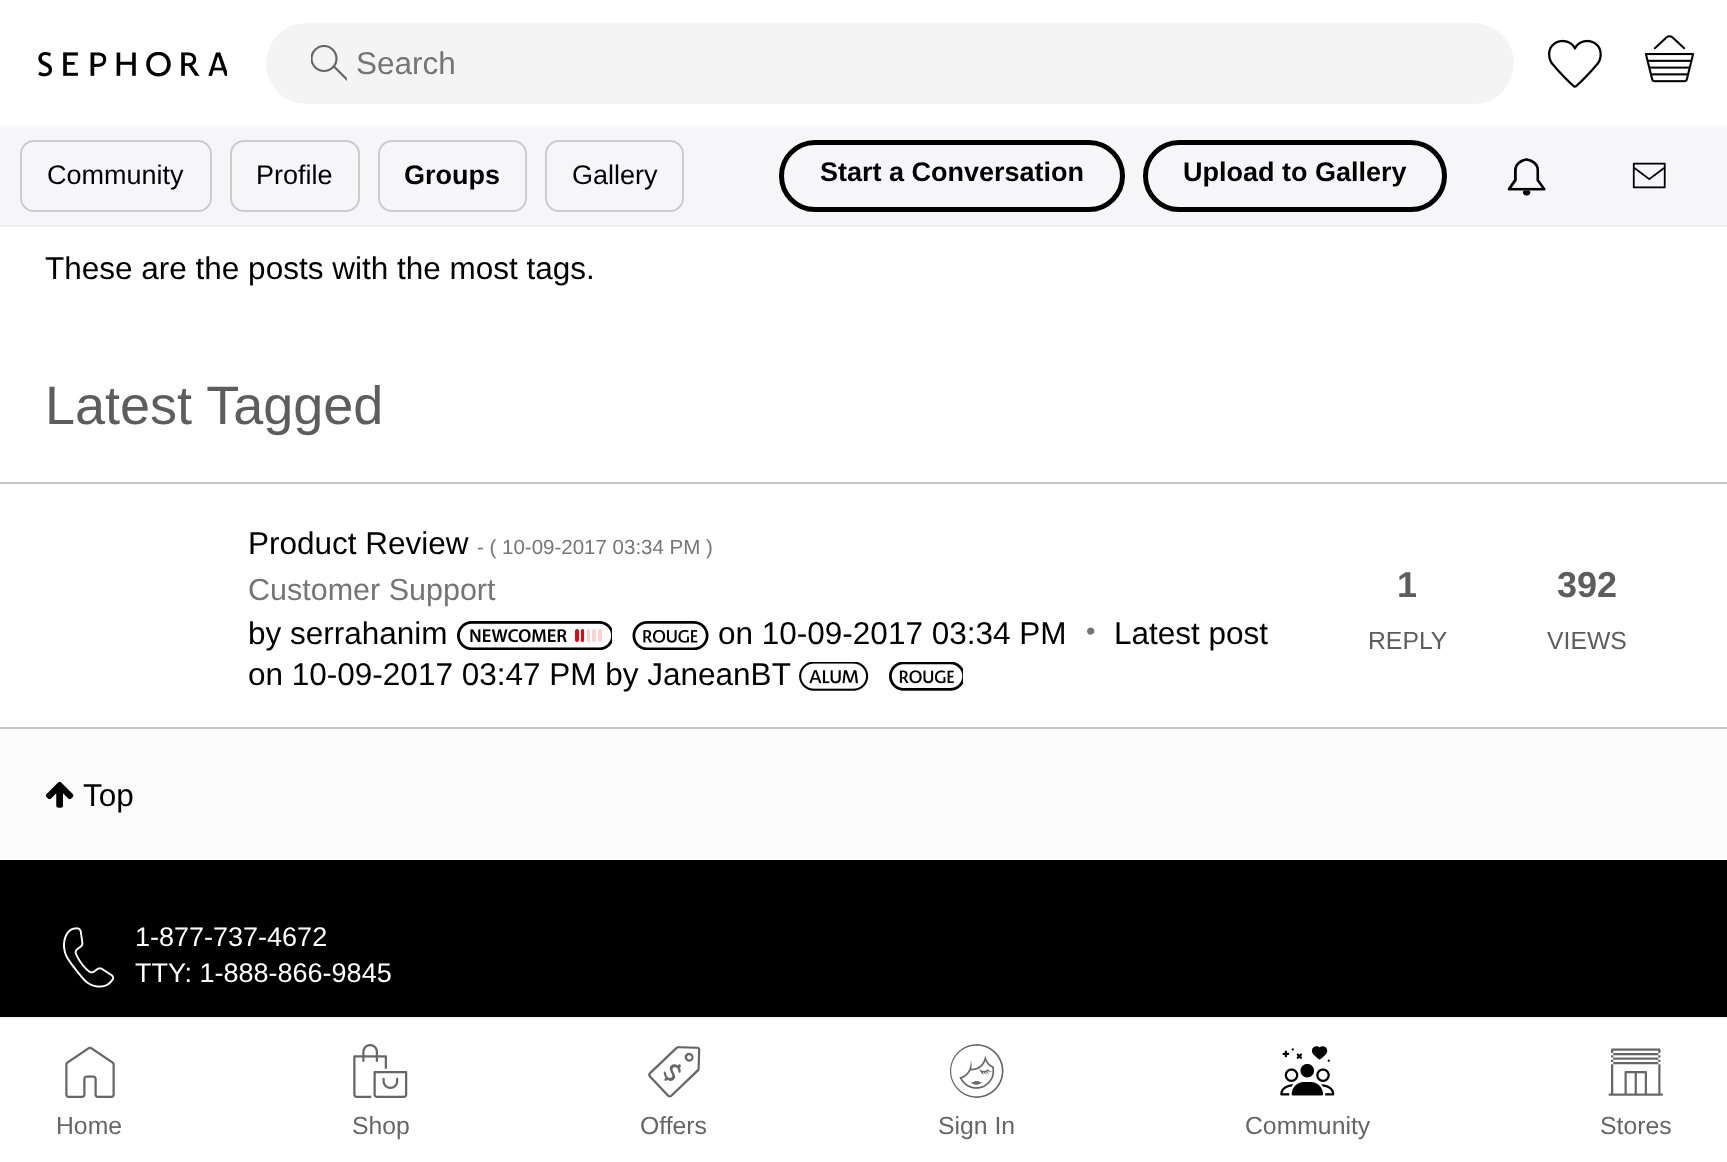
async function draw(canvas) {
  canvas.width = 1727;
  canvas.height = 1162;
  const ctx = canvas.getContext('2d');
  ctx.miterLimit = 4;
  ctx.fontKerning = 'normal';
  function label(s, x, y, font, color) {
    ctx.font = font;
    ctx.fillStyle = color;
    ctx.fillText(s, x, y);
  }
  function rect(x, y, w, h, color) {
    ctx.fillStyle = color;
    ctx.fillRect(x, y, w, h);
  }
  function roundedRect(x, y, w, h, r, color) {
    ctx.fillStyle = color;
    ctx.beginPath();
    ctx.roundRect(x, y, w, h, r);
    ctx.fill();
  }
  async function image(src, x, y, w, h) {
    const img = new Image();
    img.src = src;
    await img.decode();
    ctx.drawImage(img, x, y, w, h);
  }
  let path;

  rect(0, 0, 1727, 1162, '#fff');
  await image('assets/img1.png', 38, 52, 189, 25);
  roundedRect(266, 23, 1248, 81, 40.5, '#f4f4f4');
  ctx.save();
  ctx.beginPath();
  ctx.rect(311, 45, 36, 36);
  ctx.clip();
  ctx.beginPath();
  ctx.arc(324, 58.5, 12.5, 0, 2 * Math.PI);
  ctx.strokeStyle = '#666';
  ctx.lineWidth = 2.2;
  ctx.stroke();
  path = new Path2D('M334 66.5L347.5 80');
  ctx.stroke(path);
  ctx.restore();
  label('Search', 356, 74, '31.5px Liberation Sans', '#757575');
  await image('assets/img2.png', 1548, 39, 54, 49);
  await image('assets/img3.png', 1644, 35, 51, 48);
  rect(0, 225, 1727, 2, '#eee');
  rect(0, 126, 1727, 99, '#f6f6f8');
  ctx.beginPath();
  ctx.roundRect(21, 141, 190, 70, 13);
  ctx.strokeStyle = '#ccc';
  ctx.lineWidth = 2;
  ctx.stroke();
  label('Community', 47, 184, '27px Liberation Sans', '#000');
  ctx.beginPath();
  ctx.roundRect(231, 141, 128, 70, 13);
  ctx.stroke();
  label('Profile', 256, 184, '27px Liberation Sans', '#000');
  ctx.beginPath();
  ctx.roundRect(379, 141, 147, 70, 13);
  ctx.stroke();
  label('Groups', 404, 184, 'bold 27px Liberation Sans', '#000');
  ctx.beginPath();
  ctx.roundRect(546, 141, 137, 70, 13);
  ctx.stroke();
  label('Gallery', 572, 184, '27px Liberation Sans', '#000');
  ctx.beginPath();
  ctx.roundRect(781.5, 142.5, 341, 67, 33.5);
  ctx.strokeStyle = '#000';
  ctx.lineWidth = 5;
  ctx.stroke();
  label('Start a Conversation', 820, 181, 'bold 27px Liberation Sans', '#000');
  ctx.beginPath();
  ctx.roundRect(1145.5, 142.5, 299, 67, 33.5);
  ctx.stroke();
  label('Upload to Gallery', 1183, 181, 'bold 27px Liberation Sans', '#000');
  await image('assets/img4.png', 1507, 158, 39, 38);
  await image('assets/img5.png', 1632, 162, 34, 27);
  rect(0, 1017, 1727, 2, '#f4f4f4');
  await image('assets/img6.png', 65, 1046, 50, 52);
  label('Home', 56, 1134, '24.75px Liberation Sans', '#666');
  await image('assets/img7.png', 353, 1044, 55, 54);
  label('Shop', 352, 1134, '24.75px Liberation Sans', '#666');
  await image('assets/img8.png', 648, 1046, 53, 52);
  label('Offers', 640, 1134, '24.75px Liberation Sans', '#666');
  await image('assets/img9.png', 950, 1044, 54, 54);
  label('Sign In', 938, 1134, '24.75px Liberation Sans', '#666');
  await image('assets/img10.png', 1280, 1046, 55, 50);
  label('Community', 1245, 1134, '24.75px Liberation Sans', '#666');
  await image('assets/img11.png', 1608, 1048, 55, 48);
  label('Stores', 1600, 1134, '24.75px Liberation Sans', '#666');
  label('These are the posts with the most tags.', 45, 279, '31.5px Liberation Sans', '#000');
  label('Latest Tagged', 45, 424, '54px Liberation Sans', '#5d5d5d');
  rect(0, 482, 1727, 2, '#c4c4c4');
  rect(0, 727, 1727, 2, '#c4c4c4');
  label('Product Review', 248, 554, '31.5px Liberation Sans', '#000');
  label('- ( 10-09-2017 03:34 PM )', 477, 554, '20.5px Liberation Sans', '#757575');
  label('Customer Support', 248, 600, '30.5px Liberation Sans', '#757575');
  label('by serrahanim', 248, 644, '31.5px Liberation Sans', '#000');
  await image('assets/img12.png', 457, 621, 155, 29);
  await image('assets/img13.png', 632, 621, 77, 29);
  label('on 10-09-2017 03:34 PM', 718, 644, '31.5px Liberation Sans', '#000');
  label('•', 1086, 640, '27px Liberation Sans', '#757575');
  label('Latest post', 1114, 644, '31.5px Liberation Sans', '#000');
  label('on 10-09-2017 03:47 PM by JaneanBT', 248, 685, '31.5px Liberation Sans', '#000');
  await image('assets/img14.png', 799, 662, 70, 29);
  await image('assets/img15.png', 889, 662, 74, 29);
  label('1', 1397, 597, 'bold 36px Liberation Sans', '#5d5d5d');
  label('REPLY', 1368, 649, '24.75px Liberation Sans', '#5d5d5d');
  label('392', 1557, 597, 'bold 36px Liberation Sans', '#5d5d5d');
  label('VIEWS', 1547, 649, '24.75px Liberation Sans', '#5d5d5d');
  rect(0, 729, 1727, 131, '#fbfbfb');
  await image('assets/img16.png', 45, 781, 29, 27);
  label('Top', 83, 806, '31.5px Liberation Sans', '#000');
  rect(0, 860, 1727, 157, '#000');
  await image('assets/img17.png', 63, 927, 52, 61);
  label('1-877-737-4672', 135, 946, '27px Liberation Sans', '#fff');
  label('TTY: 1-888-866-9845', 135, 982, '27px Liberation Sans', '#fff');
}

draw(document.querySelector('canvas'));
